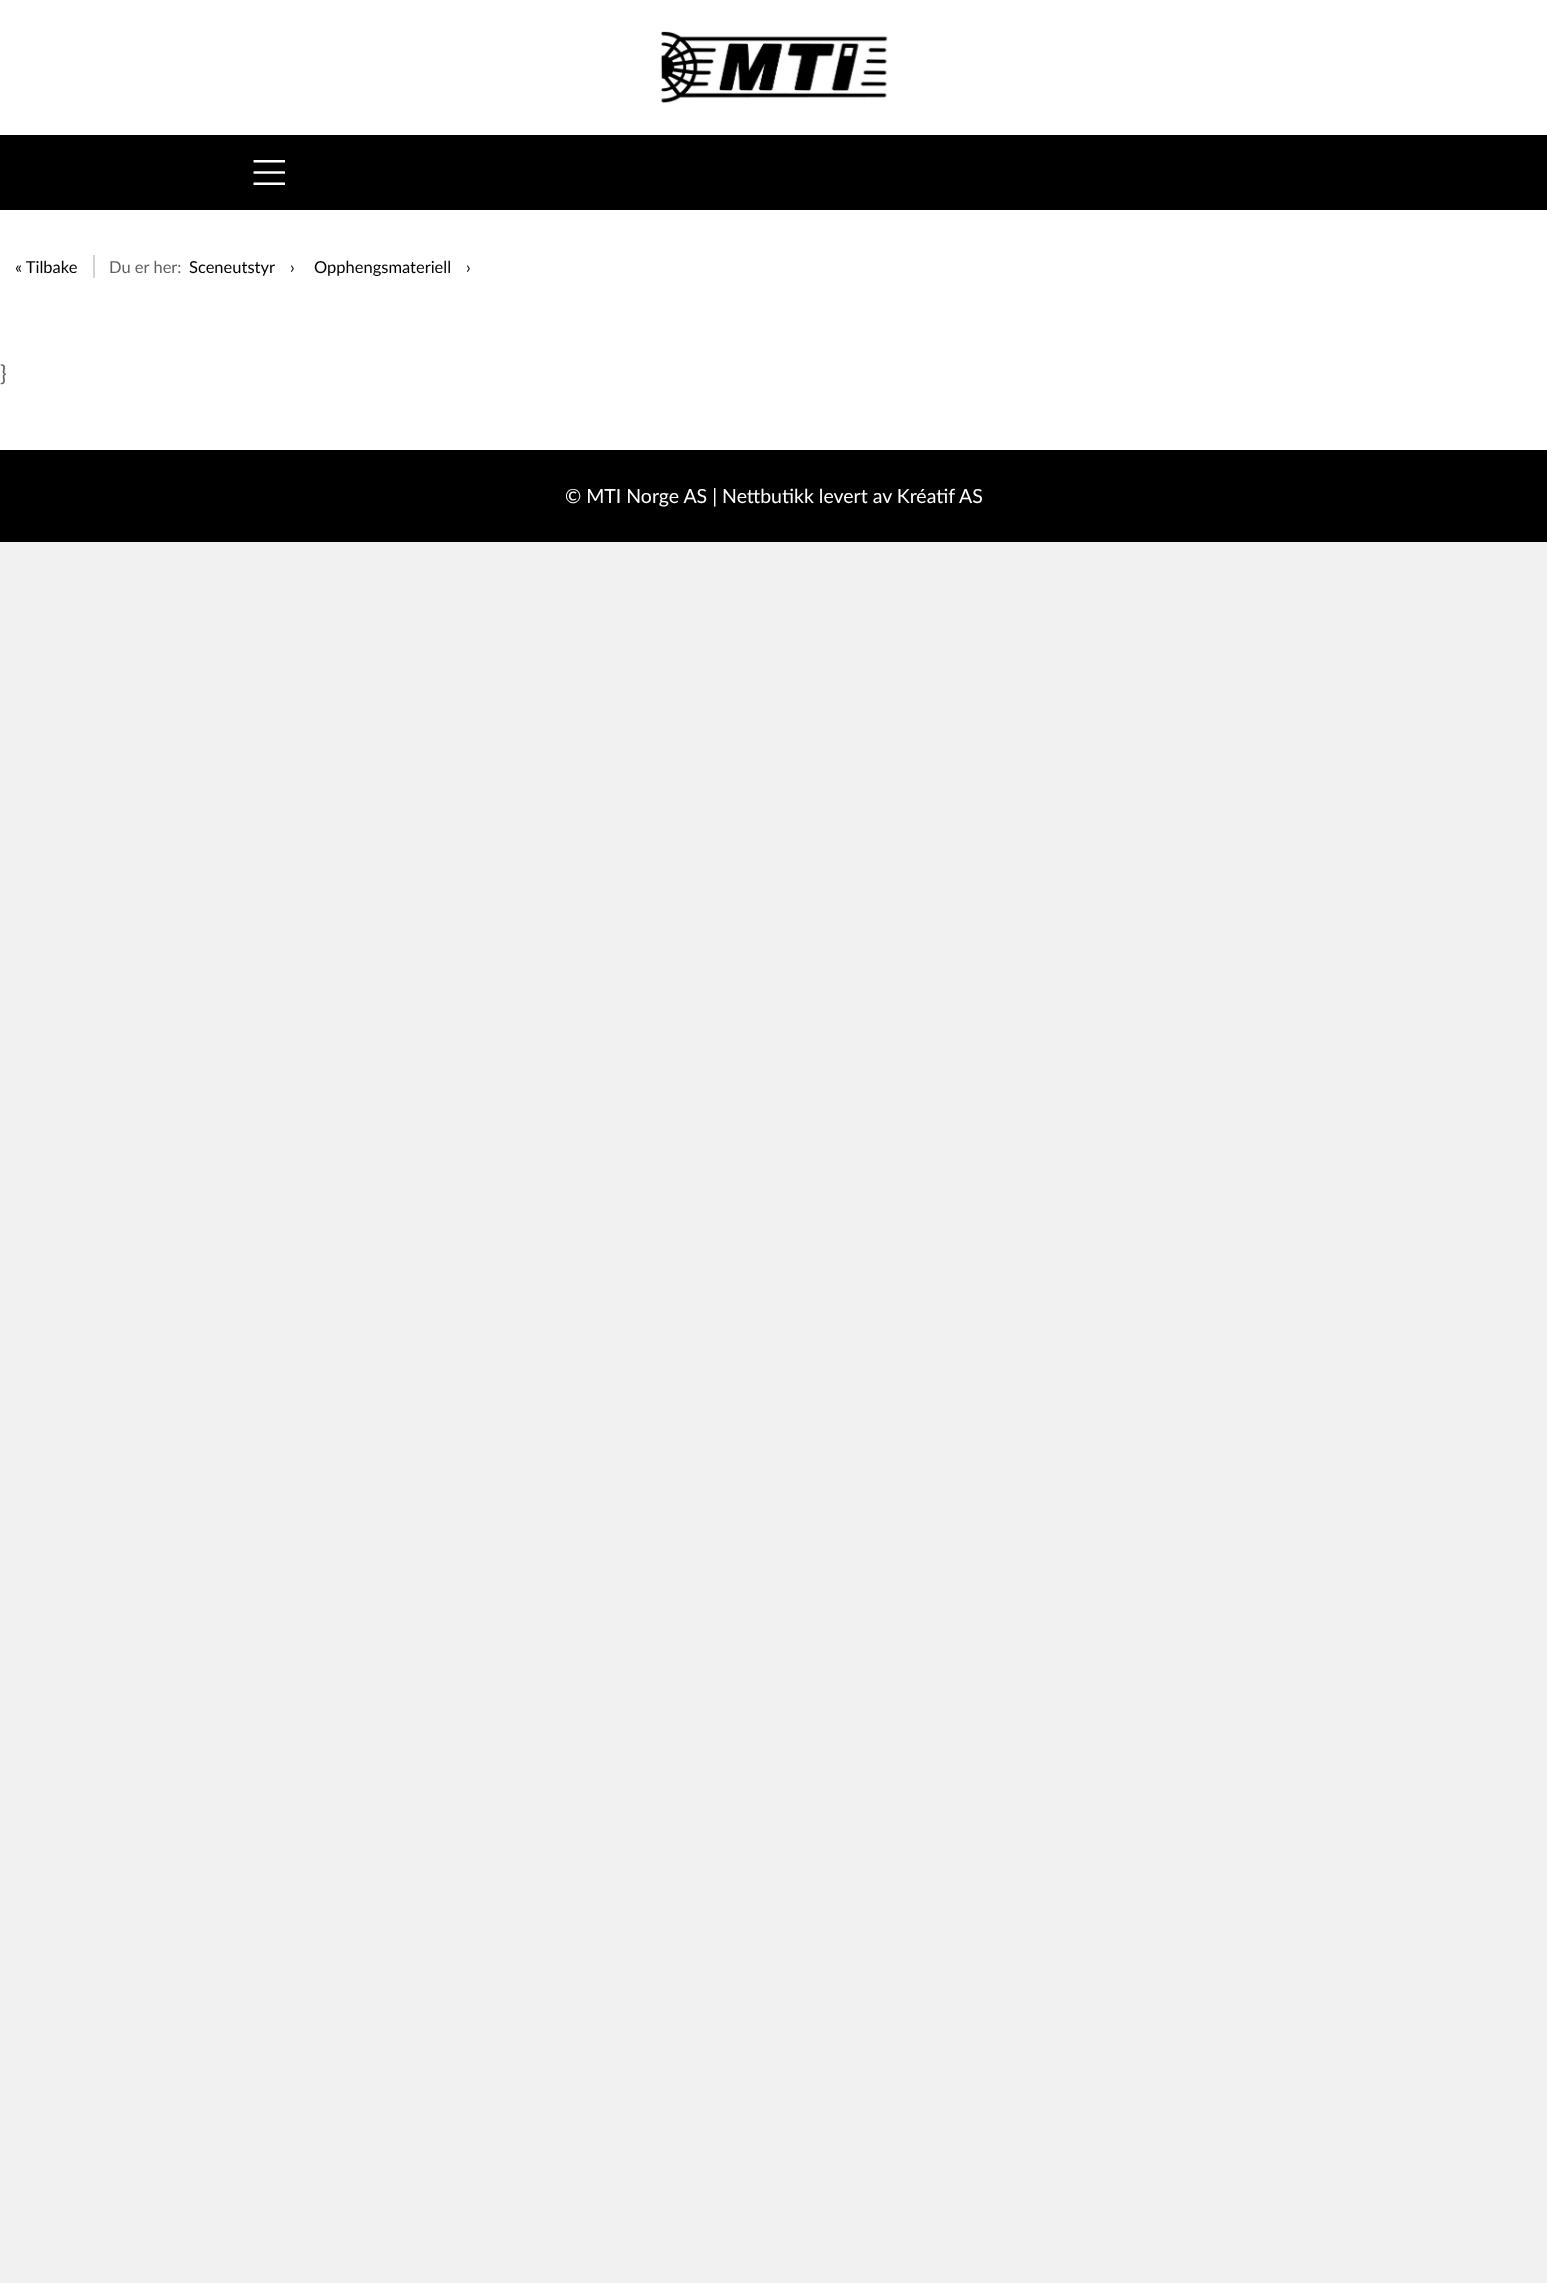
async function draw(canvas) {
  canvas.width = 1547;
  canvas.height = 2283;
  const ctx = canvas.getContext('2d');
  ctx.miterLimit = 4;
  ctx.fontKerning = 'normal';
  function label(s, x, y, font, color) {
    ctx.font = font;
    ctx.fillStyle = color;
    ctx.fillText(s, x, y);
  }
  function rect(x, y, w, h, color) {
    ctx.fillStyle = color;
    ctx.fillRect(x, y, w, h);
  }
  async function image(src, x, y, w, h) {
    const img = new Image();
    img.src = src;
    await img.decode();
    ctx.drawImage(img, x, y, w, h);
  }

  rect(0, 0, 1547, 2283, '#f1f1f1');
  rect(0, 0, 1547, 450, '#fff');
  await image('assets/img1.png', 660, 31, 228, 73);
  rect(0, 135, 1547, 75, '#000');
  await image('assets/img2.png', 253, 160, 32, 25);
  label('« Tilbake', 15, 273, '16.5px Lato', '#000');
  rect(93, 255, 2, 23, '#d3d3d3');
  label('Du er her:', 109, 273, '16.5px Lato', '#606060');
  label('Sceneutstyr', 189, 273, '16.5px Lato', '#000');
  label('›', 290, 273, '16.5px Lato', '#000');
  label('Opphengsmateriell', 314, 273, '16.5px Lato', '#000');
  label('›', 466, 273, '16.5px Lato', '#000');
  label('}', 0, 381, '22px Lato', '#606060');
  rect(0, 450, 1547, 92, '#000');
  label('© MTI Norge AS | Nettbutikk levert av Kréatif AS', 565, 503, '19.5px Lato', '#fff');
}

draw(document.querySelector('canvas'));
